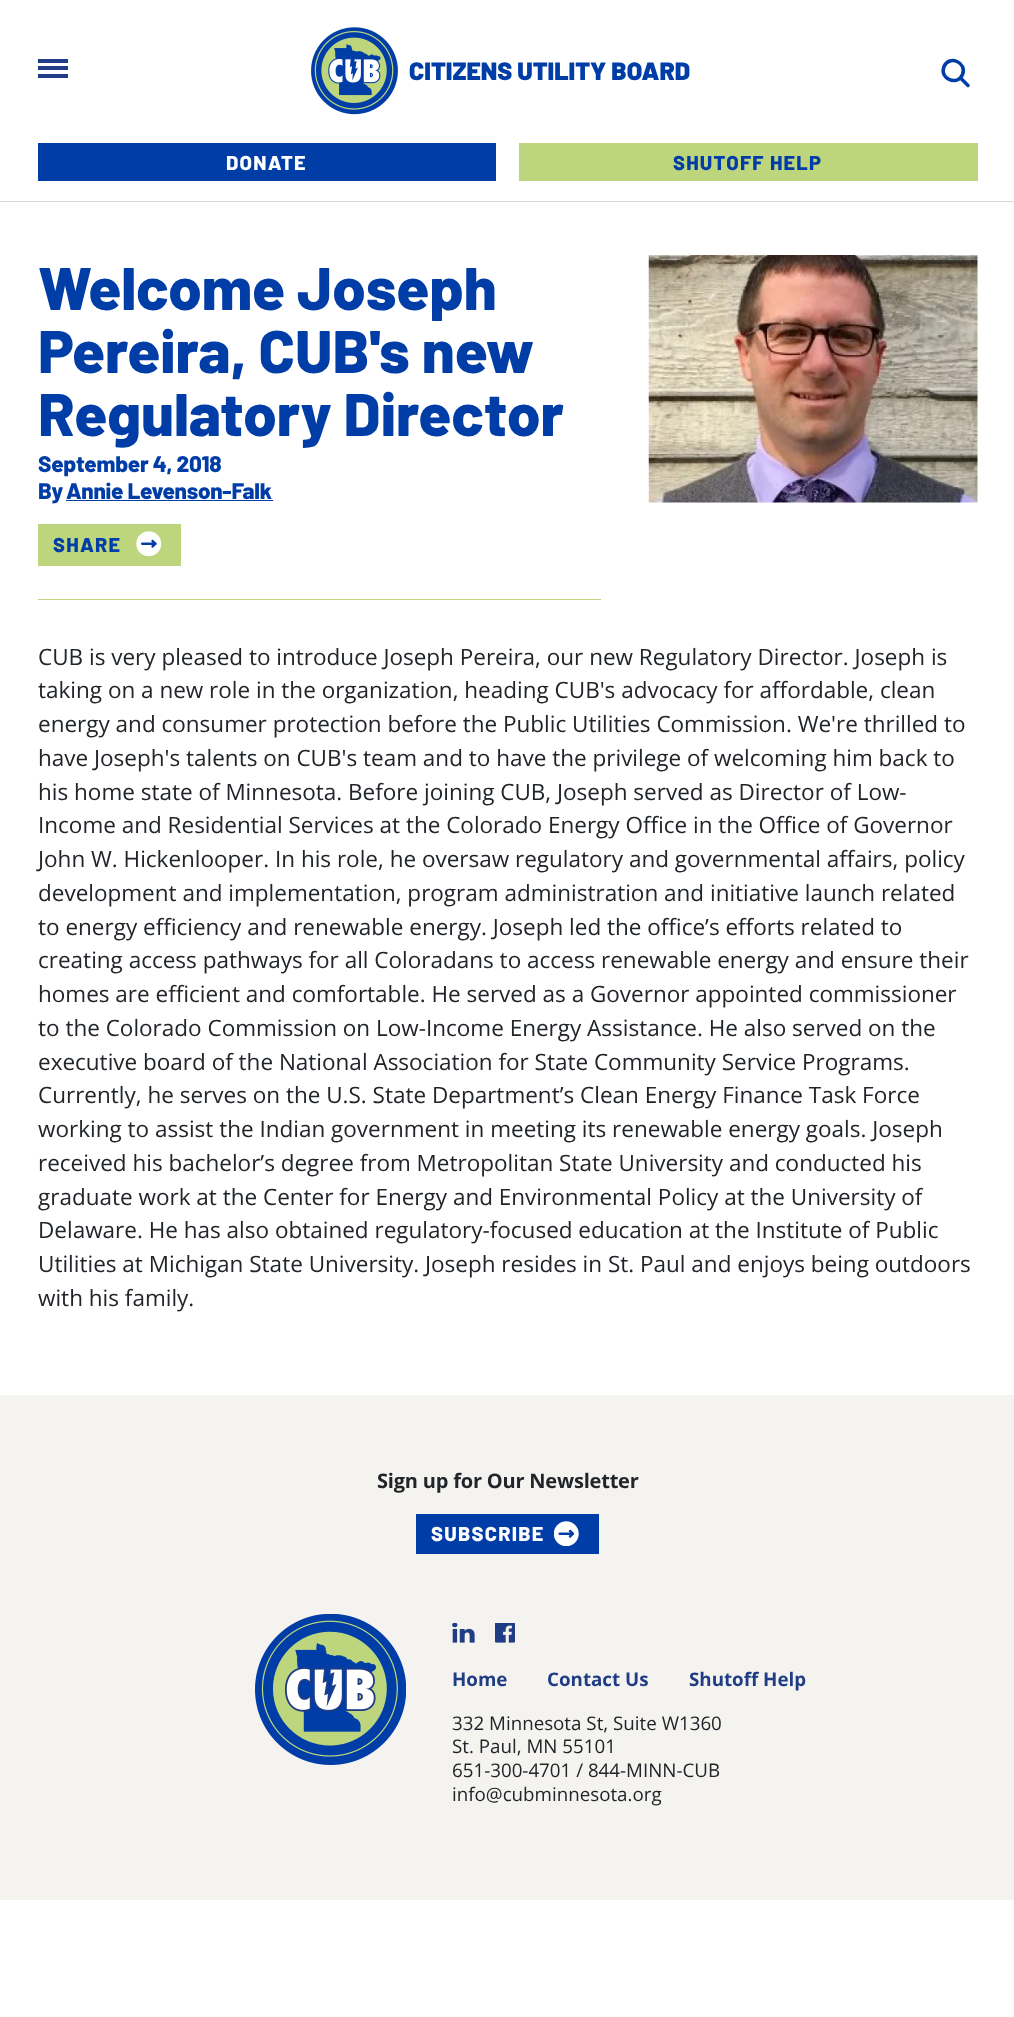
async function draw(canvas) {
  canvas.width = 1014;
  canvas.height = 2017;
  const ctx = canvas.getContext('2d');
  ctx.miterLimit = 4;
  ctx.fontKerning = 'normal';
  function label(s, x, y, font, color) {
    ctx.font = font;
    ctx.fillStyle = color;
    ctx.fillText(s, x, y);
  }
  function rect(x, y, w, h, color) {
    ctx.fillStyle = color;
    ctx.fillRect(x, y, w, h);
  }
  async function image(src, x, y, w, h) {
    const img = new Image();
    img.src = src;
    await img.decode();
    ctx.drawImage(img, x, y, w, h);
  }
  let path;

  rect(0, 0, 1014, 2017, '#fff');
  rect(38, 59, 30, 4, '#203c84');
  rect(38, 66, 30, 4, '#203c84');
  rect(38, 74, 30, 4, '#203c84');
  await image('assets/img1.png', 311, 27, 87, 88);
  label('CITIZENS UTILITY BOARD', 409, 80, '900 25px Barlow', '#003da6');
  path = new Path2D('M962.5 74.5C957.5 86.5 939 79 944 66.5C949 54.5 967.5 62.5 962.5 74.5Z');
  ctx.strokeStyle = '#003da6';
  ctx.lineWidth = 3.5;
  ctx.stroke(path);
  path = new Path2D('M961 78.5L968 85.5');
  ctx.lineCap = 'round';
  ctx.stroke(path);
  rect(38, 143, 458, 38, '#003da6');
  ctx.letterSpacing = '1.25px';
  label('DONATE', 226, 170, '800 20px Barlow', '#fff');
  rect(519, 143, 459, 38, '#bdd67e');
  label('SHUTOFF HELP', 673, 170, '800 20px Barlow', '#003da6');
  rect(0, 201, 1014, 1, '#dad9d6');
  rect(38, 599, 563, 1, '#bdd67e');
  ctx.letterSpacing = '0px';
  label('Welcome Joseph', 38, 310, '800 60px Barlow', '#003da6');
  label('Pereira, CUB\'s new', 38, 373, '800 60px Barlow', '#003da6');
  label('Regulatory Director', 38, 436, '800 60px Barlow', '#003da6');
  ctx.letterSpacing = '-0.25px';
  label('September 4, 2018', 38, 472, '800 22.5px Barlow', '#003da6');
  label('By', 38, 499, '800 22.5px Barlow', '#003da6');
  label('Annie Levenson-Falk', 66, 499, '800 22.5px Barlow', '#003da6');
  rect(66, 500, 207, 1, '#003da6');
  rect(38, 524, 143, 42, '#bdd67e');
  ctx.letterSpacing = '1.25px';
  label('SHARE', 53, 552, '800 20px Barlow', '#003da6');
  await image('assets/img2.png', 136, 531, 25, 25);
  await image('assets/img3.png', 648, 255, 330, 248);
  ctx.letterSpacing = '0px';
  label('CUB is very pleased to introduce Joseph Pereira, our new Regulatory Director. Joseph is', 38, 665, '22.5px Open Sans', '#212529');
  label('taking on a new role in the organization, heading CUB\'s advocacy for affordable, clean', 38, 698, '22.5px Open Sans', '#212529');
  label('energy and consumer protection before the Public Utilities Commission. We\'re thrilled to', 38, 732, '22.5px Open Sans', '#212529');
  label('have Joseph\'s talents on CUB\'s team and to have the privilege of welcoming him back to', 38, 766, '22.5px Open Sans', '#212529');
  label('his home state of Minnesota. Before joining CUB, Joseph served as Director of Low-', 38, 800, '22.5px Open Sans', '#212529');
  label('Income and Residential Services at the Colorado Energy Office in the Office of Governor', 38, 833, '22.5px Open Sans', '#212529');
  label('John W. Hickenlooper. In his role, he oversaw regulatory and governmental affairs, policy', 38, 867, '22.5px Open Sans', '#212529');
  label('development and implementation, program administration and initiative launch related', 38, 901, '22.5px Open Sans', '#212529');
  label('to energy efficiency and renewable energy. Joseph led the office’s efforts related to', 38, 935, '22.5px Open Sans', '#212529');
  label('creating access pathways for all Coloradans to access renewable energy and ensure their', 38, 968, '22.5px Open Sans', '#212529');
  label('homes are efficient and comfortable. He served as a Governor appointed commissioner', 38, 1002, '22.5px Open Sans', '#212529');
  label('to the Colorado Commission on Low-Income Energy Assistance. He also served on the', 38, 1036, '22.5px Open Sans', '#212529');
  label('executive board of the National Association for State Community Service Programs.', 38, 1070, '22.5px Open Sans', '#212529');
  label('Currently, he serves on the U.S. State Department’s Clean Energy Finance Task Force', 38, 1103, '22.5px Open Sans', '#212529');
  label('working to assist the Indian government in meeting its renewable energy goals. Joseph', 38, 1137, '22.5px Open Sans', '#212529');
  label('received his bachelor’s degree from Metropolitan State University and conducted his', 38, 1171, '22.5px Open Sans', '#212529');
  label('graduate work at the Center for Energy and Environmental Policy at the University of', 38, 1205, '22.5px Open Sans', '#212529');
  label('Delaware. He has also obtained regulatory-focused education at the Institute of Public', 38, 1238, '22.5px Open Sans', '#212529');
  label('Utilities at Michigan State University. Joseph resides in St. Paul and enjoys being outdoors', 38, 1272, '22.5px Open Sans', '#212529');
  label('with his family.', 38, 1306, '22.5px Open Sans', '#212529');
  rect(0, 1395, 1014, 505, '#f4f3f0');
  ctx.letterSpacing = '-0.2px';
  label('Sign up for Our Newsletter', 377, 1488, 'bold 20px Open Sans', '#212529');
  rect(416, 1514, 183, 40, '#003da6');
  ctx.letterSpacing = '1.25px';
  label('SUBSCRIBE', 431, 1541, '800 20px Barlow', '#fff');
  await image('assets/img4.png', 554, 1521, 25, 25);
  await image('assets/img5.png', 255, 1614, 151, 151);
  await image('assets/img6.png', 452, 1623, 23, 20);
  await image('assets/img7.png', 495, 1623, 20, 20);
  ctx.letterSpacing = '0px';
  label('Home', 452, 1686, 'bold 18.75px Open Sans', '#203c84');
  label('Contact Us', 547, 1686, 'bold 18.75px Open Sans', '#203c84');
  label('Shutoff Help', 689, 1686, 'bold 18.75px Open Sans', '#203c84');
  label('332 Minnesota St, Suite W1360', 452, 1730, '18.75px Open Sans', '#212529');
  label('St. Paul, MN 55101', 452, 1753, '18.75px Open Sans', '#212529');
  label('651-300-4701 / 844-MINN-CUB', 452, 1777, '18.75px Open Sans', '#212529');
  label('info@cubminnesota.org', 452, 1801, '18.75px Open Sans', '#212529');
}

draw(document.querySelector('canvas'));
